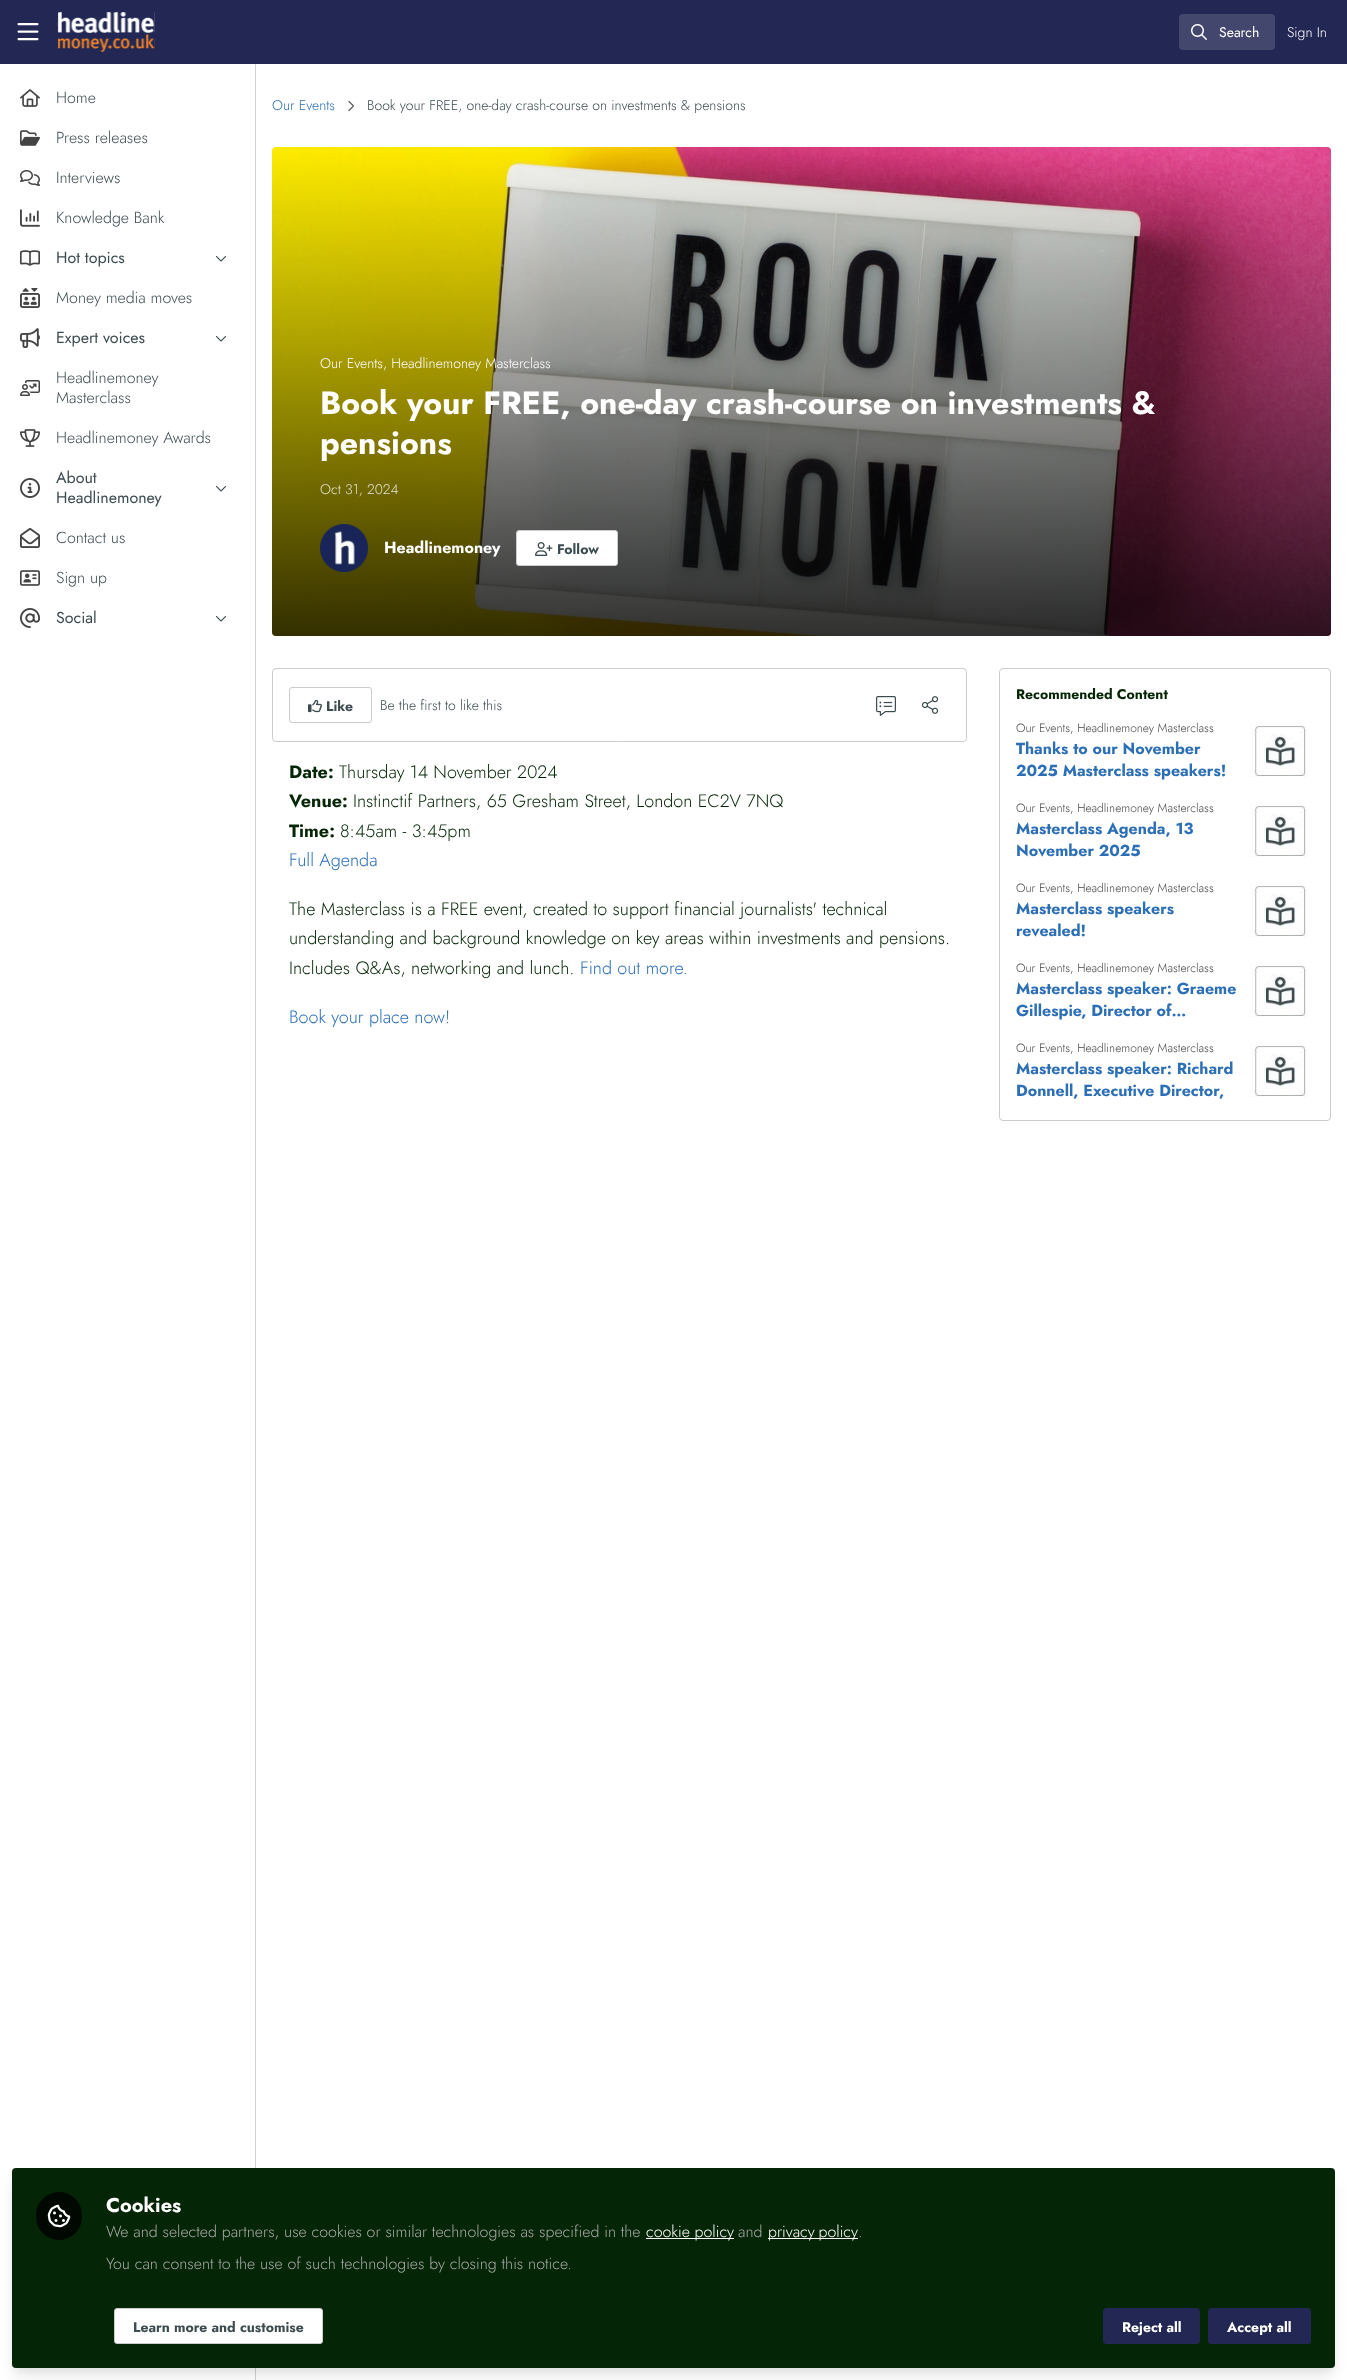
async function draw(canvas) {
  canvas.width = 1347;
  canvas.height = 2380;
  const ctx = canvas.getContext('2d');
  ctx.miterLimit = 4;
  ctx.fontKerning = 'normal';
  function label(s, x, y, font, color) {
    ctx.font = font;
    ctx.fillStyle = color;
    ctx.fillText(s, x, y);
  }
  function rect(x, y, w, h, color) {
    ctx.fillStyle = color;
    ctx.fillRect(x, y, w, h);
  }
  function roundedRect(x, y, w, h, r, color) {
    ctx.fillStyle = color;
    ctx.beginPath();
    ctx.roundRect(x, y, w, h, r);
    ctx.fill();
  }
  async function image(src, x, y, w, h) {
    const img = new Image();
    img.src = src;
    await img.decode();
    ctx.drawImage(img, x, y, w, h);
  }
  let gradient, path;

  rect(0, 0, 1347, 2380, '#fff');
  rect(0, 0, 1347, 64, '#222753');
  await image('assets/img1.png', 17, 23, 22, 18);
  await image('assets/img2.png', 57, 12, 98, 40);
  roundedRect(1179, 14, 96, 36, 4, '#43476d');
  await image('assets/img3.png', 1191, 24, 16, 16);
  label('Search', 1219, 37, '14px Jost', '#fff');
  label('Sign In', 1287, 37, '300 14px Jost', '#fff');
  rect(255, 64, 1, 2316, '#d2d2d2');
  await image('assets/img4.png', 20, 89, 20, 18);
  label('Home', 56, 103, '300 16px Jost', '#3b4b50');
  await image('assets/img5.png', 20, 130, 20, 16);
  label('Press releases', 56, 143, '300 16px Jost', '#3b4b50');
  await image('assets/img6.png', 20, 170, 20, 16);
  label('Interviews', 56, 183, '300 16px Jost', '#3b4b50');
  await image('assets/img7.png', 20, 209, 20, 18);
  label('Knowledge Bank', 56, 223, '300 16px Jost', '#3b4b50');
  await image('assets/img8.png', 20, 250, 20, 16);
  label('Hot topics', 56, 263, '16px Jost', '#3b4b50');
  await image('assets/img9.png', 216, 256, 10, 6);
  await image('assets/img10.png', 20, 288, 20, 20);
  label('Money media moves', 56, 303, '300 16px Jost', '#3b4b50');
  await image('assets/img11.png', 20, 328, 20, 20);
  label('Expert voices', 56, 343, '16px Jost', '#3b4b50');
  await image('assets/img9.png', 216, 336, 10, 6);
  await image('assets/img12.png', 20, 380, 20, 16);
  label('Headlinemoney', 56, 383, '300 16px Jost', '#3b4b50');
  label('Masterclass', 56, 403, '300 16px Jost', '#3b4b50');
  await image('assets/img13.png', 20, 429, 20, 18);
  label('Headlinemoney Awards', 56, 443, '300 16px Jost', '#3b4b50');
  await image('assets/img14.png', 20, 478, 20, 20);
  label('About', 56, 483, '16px Jost', '#3b4b50');
  label('Headlinemoney', 56, 503, '16px Jost', '#3b4b50');
  await image('assets/img9.png', 216, 486, 10, 6);
  await image('assets/img15.png', 20, 528, 20, 20);
  label('Contact us', 56, 543, '300 16px Jost', '#3b4b50');
  await image('assets/img16.png', 20, 570, 20, 16);
  label('Sign up', 56, 583, '300 16px Jost', '#3b4b50');
  await image('assets/img17.png', 20, 608, 20, 20);
  label('Social', 56, 623, '16px Jost', '#3b4b50');
  await image('assets/img9.png', 216, 616, 10, 6);
  label('Our Events', 272, 110, '300 14px Jost', '#2d6fb6');
  path = new Path2D('M349 101.5L353.5 106L349 110.5');
  ctx.strokeStyle = '#5f5f5f';
  ctx.lineWidth = 1.3;
  ctx.lineCap = 'round';
  ctx.lineJoin = 'round';
  ctx.stroke(path);
  label('Book your FREE, one-day crash-course on investments & pensions', 367, 110, '300 14px Jost', '#3b4b50');
  await image('assets/img18.png', 272, 147, 1059, 489);
  gradient = ctx.createLinearGradient(802, 147, 802, 636);
  gradient.addColorStop(0, '#00000000');
  gradient.addColorStop(1, '#000000cc');
  ctx.fillStyle = gradient;
  ctx.beginPath();
  ctx.roundRect(272, 147, 1059, 489, 4);
  ctx.fill();
  label('Our Events, Headlinemoney Masterclass', 320, 368, '300 14px Jost', '#fff');
  label('Book your FREE, one-day crash-course on investments &', 320, 414, 'bold 32px Jost', '#fff');
  label('pensions', 320, 454, 'bold 32px Jost', '#fff');
  label('Oct 31, 2024', 320, 494, '300 14px Jost', '#e2e1cc');
  await image('assets/img19.png', 320, 524, 48, 48);
  label('Headlinemoney', 384, 553, 'bold 16px Jost', '#fff');
  ctx.beginPath();
  ctx.roundRect(516.5, 530.5, 101, 35, 2.5);
  ctx.fill();
  ctx.strokeStyle = '#ccc';
  ctx.lineWidth = 1;
  ctx.lineJoin = 'miter';
  ctx.stroke();
  await image('assets/img20.png', 535, 542, 18, 14);
  label('Follow', 557, 554, 'bold 14px Jost', '#3b4b50');
  ctx.beginPath();
  ctx.roundRect(272.5, 668.5, 694, 73, 3.5);
  ctx.stroke();
  ctx.beginPath();
  ctx.roundRect(289.5, 687.5, 82, 35, 2.5);
  ctx.stroke();
  await image('assets/img21.png', 308, 699, 14, 14);
  label('Like', 326, 711, 'bold 14px Jost', '#3b4b50');
  label('Be the first to like this', 380, 710, '300 14px Jost', '#3b4b50');
  await image('assets/img22.png', 876, 696, 20, 20);
  await image('assets/img23.png', 921, 696, 18, 18);
  label('Date:', 289, 778, 'bold 18px Jost', '#052606');
  label('Thursday 14 November 2024', 339, 778, '300 18px Jost', '#052606');
  label('Venue:', 289, 807, 'bold 18px Jost', '#052606');
  label('Instinctif Partners, 65 Gresham Street, London EC2V 7NQ', 353, 807, '300 18px Jost', '#052606');
  label('Time:', 289, 837, 'bold 18px Jost', '#052606');
  label('8:45am - 3:45pm', 340, 837, '300 18px Jost', '#052606');
  label('Full Agenda', 289, 866, '300 18px Jost', '#2d6fb6');
  label('The Masterclass is a FREE event, created to support financial journalists\' technical', 289, 915, '300 18px Jost', '#052606');
  label('understanding and background knowledge on key areas within investments and pensions.', 289, 944, '300 18px Jost', '#052606');
  label('Includes Q&As, networking and lunch.', 289, 974, '300 18px Jost', '#052606');
  label('Find out more.', 580, 974, '300 18px Jost', '#2d6fb6');
  label('Book your place now!', 289, 1023, '300 18px Jost', '#2d6fb6');
  ctx.beginPath();
  ctx.roundRect(999.5, 668.5, 331, 452, 3.5);
  ctx.stroke();
  label('Recommended Content', 1016, 699, 'bold 14px Jost', '#052606');
  label('Our Events, Headlinemoney Masterclass', 1016, 732, '300 12px Jost', '#444');
  label('Thanks to our November', 1016, 754, 'bold 16px Jost', '#2d6fb6');
  label('2025 Masterclass speakers!', 1016, 776, 'bold 16px Jost', '#2d6fb6');
  await image('assets/img24.png', 1250, 720, 64, 64);
  label('Our Events, Headlinemoney Masterclass', 1016, 812, '300 12px Jost', '#444');
  label('Masterclass Agenda, 13', 1016, 834, 'bold 16px Jost', '#2d6fb6');
  label('November 2025', 1016, 856, 'bold 16px Jost', '#2d6fb6');
  await image('assets/img24.png', 1250, 800, 64, 64);
  label('Our Events, Headlinemoney Masterclass', 1016, 892, '300 12px Jost', '#444');
  label('Masterclass speakers', 1016, 914, 'bold 16px Jost', '#2d6fb6');
  label('revealed!', 1016, 936, 'bold 16px Jost', '#2d6fb6');
  await image('assets/img24.png', 1250, 880, 64, 64);
  label('Our Events, Headlinemoney Masterclass', 1016, 972, '300 12px Jost', '#444');
  label('Masterclass speaker: Graeme', 1016, 994, 'bold 16px Jost', '#2d6fb6');
  label('Gillespie, Director of…', 1016, 1016, 'bold 16px Jost', '#2d6fb6');
  await image('assets/img24.png', 1250, 960, 64, 64);
  label('Our Events, Headlinemoney Masterclass', 1016, 1052, '300 12px Jost', '#444');
  label('Masterclass speaker: Richard', 1016, 1074, 'bold 16px Jost', '#2d6fb6');
  label('Donnell, Executive Director,', 1016, 1096, 'bold 16px Jost', '#2d6fb6');
  await image('assets/img24.png', 1250, 1040, 64, 64);
  ctx.fillStyle = '#0000000d';
  ctx.filter = 'blur(3px)';
  ctx.beginPath();
  ctx.roundRect(14, 2174, 1319, 196, 2);
  ctx.fill();
  ctx.filter = 'none';
  ctx.fillStyle = '#0000001a';
  ctx.filter = 'blur(7.5px)';
  ctx.beginPath();
  ctx.roundRect(15, 2181, 1317, 194, 1);
  ctx.fill();
  ctx.filter = 'none';
  roundedRect(12, 2168, 1323, 200, 4, '#052606');
  roundedRect(36, 2192, 46, 48, 23, '#010801');
  await image('assets/img25.png', 47, 2204, 24, 24);
  label('Cookies', 106, 2212, 'bold 20px Jost', '#fff');
  label('We and selected partners, use cookies or similar technologies as specified in the', 106, 2237, '300 16px Jost', '#a8a8a8');
  rect(646, 2238, 88, 1, '#fff');
  label('cookie policy', 646, 2237, '300 16px Jost', '#fff');
  label('and', 738, 2237, '300 16px Jost', '#a8a8a8');
  rect(768, 2238, 90, 1, '#fff');
  ctx.wordSpacing = '-1px';
  label('privacy policy', 768, 2237, '300 16px Jost', '#fff');
  ctx.wordSpacing = '0px';
  label('.', 858, 2237, '300 16px Jost', '#a8a8a8');
  label('You can consent to the use of such technologies by closing this notice.', 106, 2269, '300 16px Jost', '#a8a8a8');
  ctx.fillStyle = '#fff';
  ctx.beginPath();
  ctx.roundRect(114.5, 2308.5, 208, 35, 2.5);
  ctx.fill();
  ctx.stroke();
  label('Learn more and customise', 133, 2332, 'bold 14px Jost', '#3b4b50');
  ctx.fillStyle = '#222753';
  ctx.beginPath();
  ctx.roundRect(1103.5, 2308.5, 96, 35, 2.5);
  ctx.fill();
  ctx.strokeStyle = '#222753';
  ctx.stroke();
  label('Reject all', 1122, 2332, 'bold 14px Jost', '#fff');
  ctx.fillStyle = '#222753';
  ctx.beginPath();
  ctx.roundRect(1208.5, 2308.5, 102, 35, 2.5);
  ctx.fill();
  ctx.stroke();
  label('Accept all', 1227, 2332, 'bold 14px Jost', '#fff');
}

draw(document.querySelector('canvas'));
